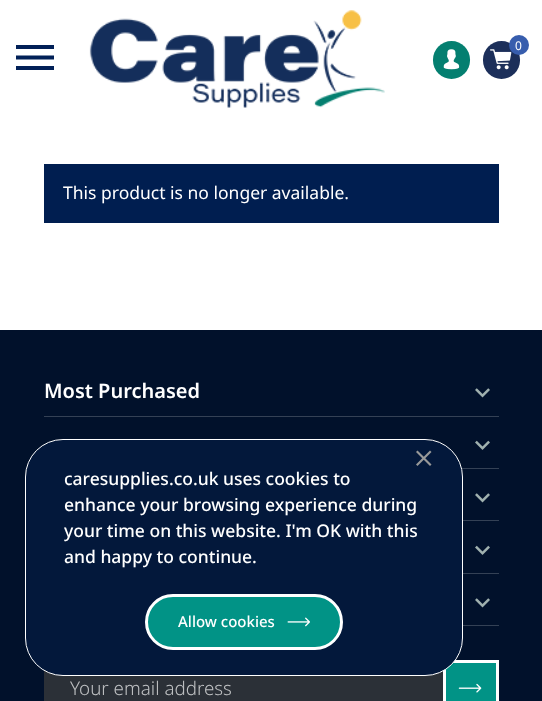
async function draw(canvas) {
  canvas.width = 542;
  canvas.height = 701;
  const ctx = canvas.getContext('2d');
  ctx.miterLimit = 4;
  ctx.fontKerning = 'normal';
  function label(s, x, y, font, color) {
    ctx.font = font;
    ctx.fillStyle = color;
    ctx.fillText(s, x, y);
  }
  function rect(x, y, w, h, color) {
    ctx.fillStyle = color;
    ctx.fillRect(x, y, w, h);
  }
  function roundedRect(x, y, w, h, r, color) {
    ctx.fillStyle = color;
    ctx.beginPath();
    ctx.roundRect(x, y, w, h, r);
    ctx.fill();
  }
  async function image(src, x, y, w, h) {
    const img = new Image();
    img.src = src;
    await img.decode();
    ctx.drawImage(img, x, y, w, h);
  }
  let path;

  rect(0, 0, 542, 701, '#fff');
  ctx.fillStyle = '#012057';
  path = new Path2D('M16 45H54V49H16ZM16 59.5V55.5H54V59.5ZM16 70V66H54V70Z');
  ctx.fill(path);
  await image('assets/img1.png', 89, 10, 296, 98);
  roundedRect(433, 41, 37, 38, 18.5, '#047f70');
  await image('assets/img2.png', 443, 49, 17, 21);
  roundedRect(483, 41, 37, 38, 18.5, '#1c2f5a');
  await image('assets/img3.png', 490, 49, 22, 21);
  ctx.fillStyle = '#375dad';
  ctx.beginPath();
  ctx.arc(519, 45, 10, 0, 2 * Math.PI);
  ctx.fill();
  label('0', 515, 50, '12px Noto Sans', '#fff');
  rect(44, 164, 455, 59, '#001e50');
  label('This product is no longer available.', 63, 199, '17.5px Noto Sans', '#fff');
  rect(0, 330, 542, 371, '#01112b');
  rect(44, 416, 455, 1, '#344155');
  label('Most Purchased', 44, 398, '600 20px Noto Sans', '#fff');
  await image('assets/img4.png', 475, 388, 15, 10);
  rect(461, 468, 38, 1, '#344155');
  await image('assets/img5.png', 475, 440, 15, 10);
  rect(463, 520, 36, 1, '#344155');
  await image('assets/img4.png', 475, 493, 15, 10);
  rect(463, 573, 36, 1, '#344155');
  await image('assets/img5.png', 475, 545, 15, 10);
  rect(463, 625, 36, 1, '#344155');
  await image('assets/img4.png', 475, 598, 15, 10);
  rect(44, 670, 399, 31, '#2b3037');
  label('Your email address', 70, 695, '300 18.75px Noto Sans', '#bfc1c3');
  ctx.fillStyle = '#019386';
  ctx.beginPath();
  ctx.rect(444.5, 661.5, 53, 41);
  ctx.fill();
  ctx.strokeStyle = '#fff';
  ctx.lineWidth = 3;
  ctx.stroke();
  await image('assets/img6.png', 458, 683, 24, 10);
  ctx.fillStyle = '#03183b';
  ctx.beginPath();
  ctx.roundRect(25.5, 439.5, 437, 236, 37.5);
  ctx.fill();
  ctx.lineWidth = 1;
  ctx.stroke();
  ctx.fillStyle = '#999';
  path = new Path2D('M416 464.5L430 450.5L431.5 452L417.5 466Z');
  ctx.fill(path);
  path = new Path2D('M417.5 450.5L431.5 464.5L430 466L416 452Z');
  ctx.fill(path);
  label('caresupplies.co.uk uses cookies to', 64, 485, '500 17.5px Noto Sans', '#fff');
  label('enhance your browsing experience during', 64, 511, '500 17.5px Noto Sans', '#fff');
  label('your time on this website. I\'m OK with this', 64, 537, '500 17.5px Noto Sans', '#fff');
  label('and happy to continue.', 64, 563, '500 17.5px Noto Sans', '#fff');
  ctx.fillStyle = '#019386';
  ctx.beginPath();
  ctx.roundRect(146.5, 595.5, 195, 53, 26.5);
  ctx.fill();
  ctx.lineWidth = 3;
  ctx.stroke();
  label('Allow cookies', 178, 627, '500 15px Noto Sans', '#fff');
  await image('assets/img7.png', 287, 617, 23, 10);
}

draw(document.querySelector('canvas'));
